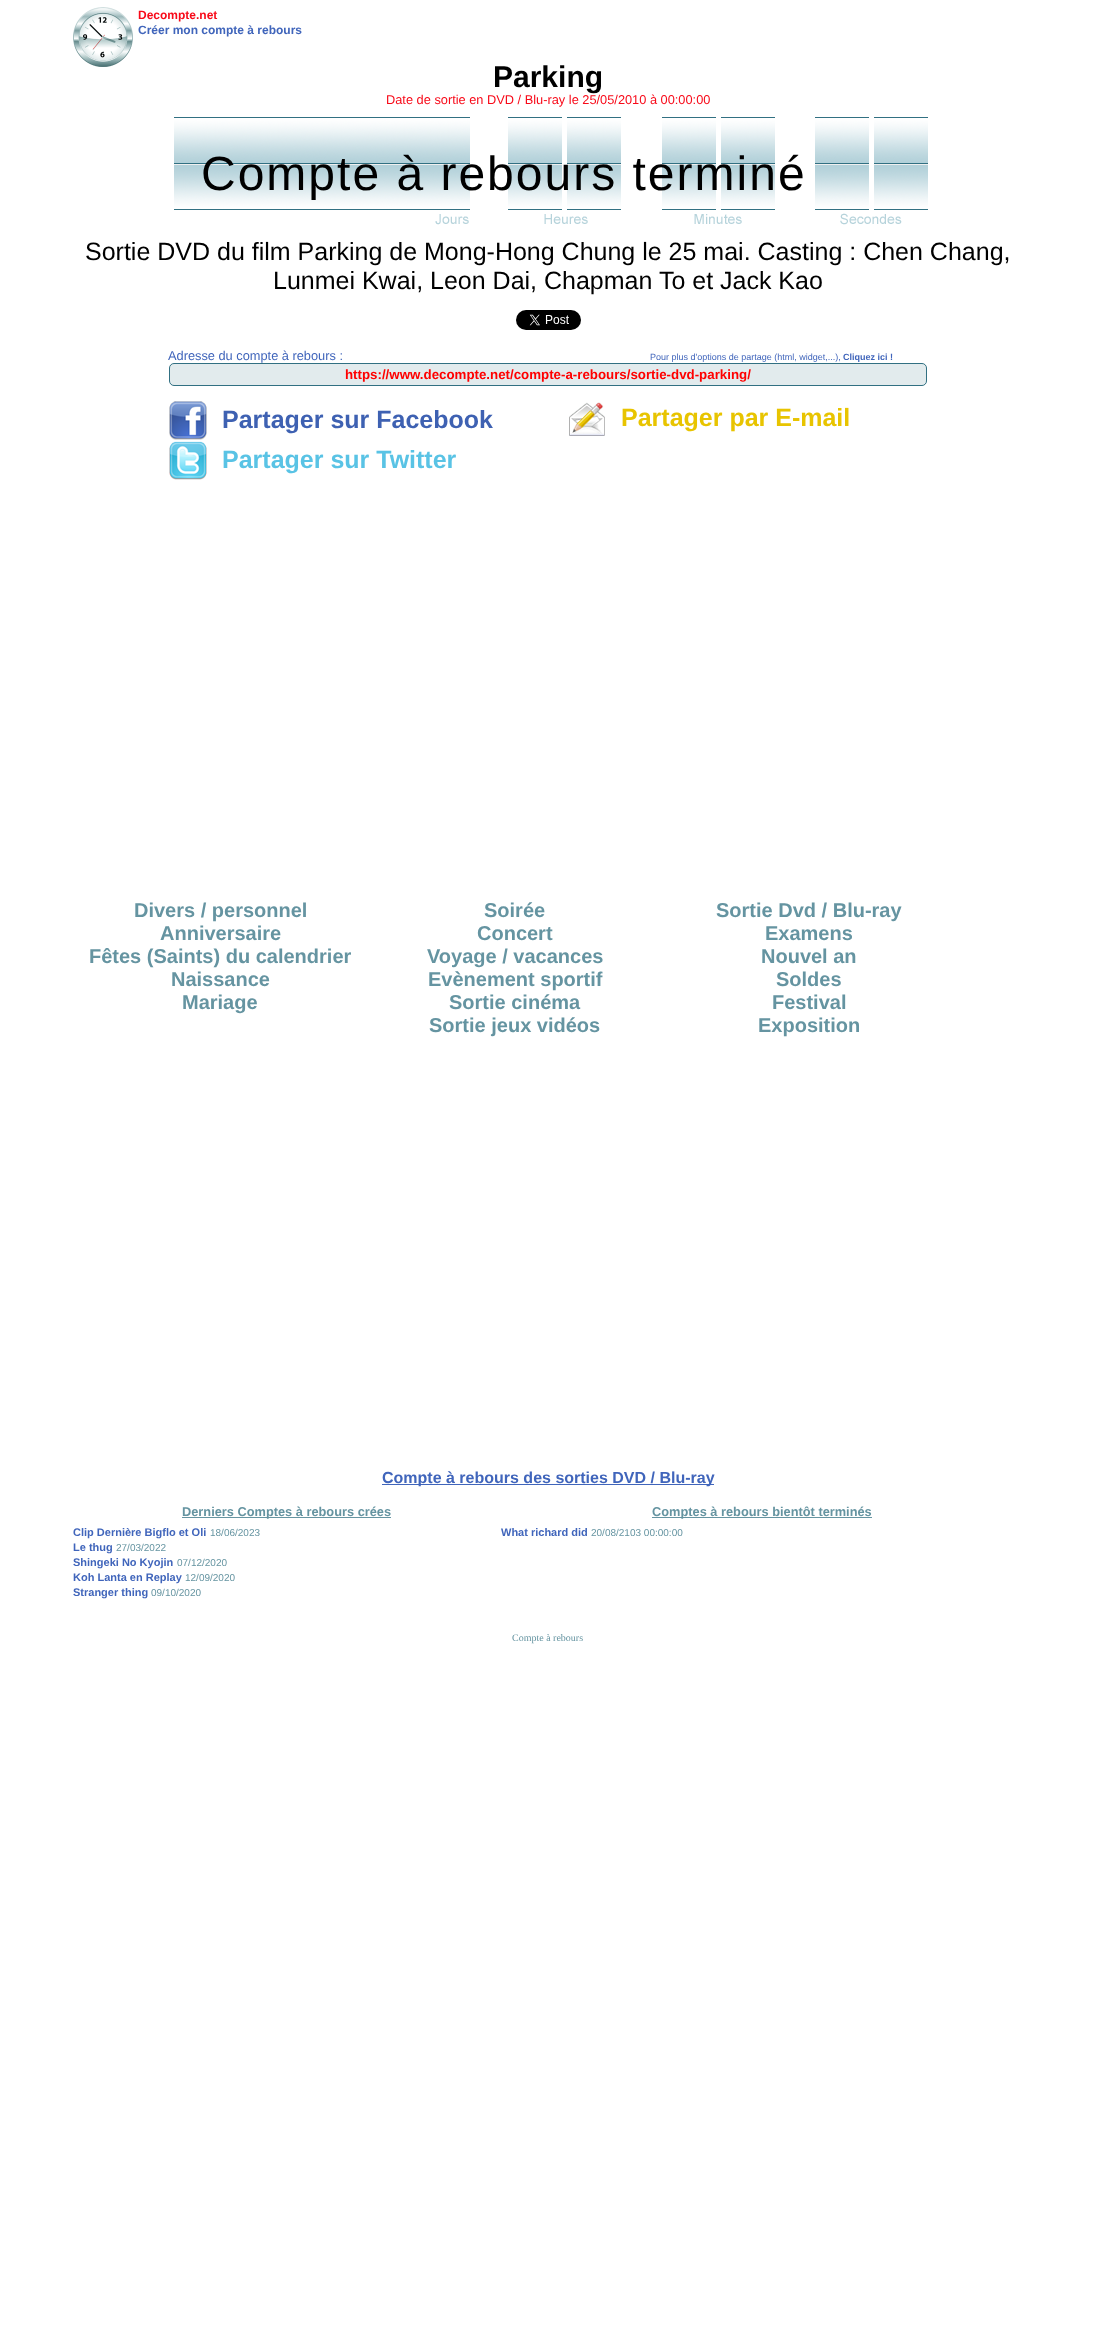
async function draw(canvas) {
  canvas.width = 1096;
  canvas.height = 2339;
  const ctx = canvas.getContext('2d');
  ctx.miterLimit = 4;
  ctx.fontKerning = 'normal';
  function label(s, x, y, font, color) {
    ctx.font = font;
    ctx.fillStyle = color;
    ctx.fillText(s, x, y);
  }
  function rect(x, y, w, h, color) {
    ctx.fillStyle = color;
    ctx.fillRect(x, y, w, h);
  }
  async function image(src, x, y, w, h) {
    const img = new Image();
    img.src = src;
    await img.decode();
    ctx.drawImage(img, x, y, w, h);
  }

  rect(0, 0, 1096, 2339, '#fff');
  await image('assets/img1.png', 73, 7, 60, 60);
  label('Decompte.net', 138, 19, 'bold 12px Liberation Sans', '#f80a19');
  label('Créer mon compte à rebours', 138, 34, 'bold 12px Liberation Sans', '#4065bb');
  label('Parking', 493, 87, 'bold 30px Liberation Sans', '#000');
  label('Date de sortie en DVD / Blu-ray le 25/05/2010 à 00:00:00', 386, 104, '12.8px Liberation Sans', '#f80a19');
  await image('assets/img2.png', 174, 117, 754, 108);
  ctx.letterSpacing = '2px';
  label('Compte à rebours terminé', 201, 190, '48px Liberation Sans', '#000');
  ctx.letterSpacing = '0px';
  label('Sortie DVD du film Parking de Mong-Hong Chung le 25 mai. Casting : Chen Chang,', 85, 260, '25px Liberation Sans', '#000');
  label('Lunmei Kwai, Leon Dai, Chapman To et Jack Kao', 273, 289, '25px Liberation Sans', '#000');
  await image('assets/img3.png', 516, 310, 65, 20);
  label('Adresse du compte à rebours :', 168, 360, '12.8px Liberation Sans', '#4065bb');
  label('Pour plus d\'options de partage (html, widget,...),', 650, 360, '9px Liberation Sans', '#4065bb');
  label('Cliquez ici !', 843, 360, 'bold 9px Liberation Sans', '#4065bb');
  ctx.fillStyle = '#e2ebed';
  ctx.beginPath();
  ctx.roundRect(169.5, 363.5, 757, 22, 4.5);
  ctx.fill();
  ctx.strokeStyle = '#317082';
  ctx.stroke();
  label('https://www.decompte.net/compte-a-rebours/sortie-dvd-parking/', 345, 379, 'bold 13.3px Liberation Sans', '#f00');
  await image('assets/img4.png', 169, 401, 38, 39);
  label('Partager sur Facebook', 222, 428, 'bold 25px Liberation Sans', '#3e61b2');
  await image('assets/img5.png', 169, 441, 38, 39);
  label('Partager sur Twitter', 222, 468, 'bold 25px Liberation Sans', '#59c3e5');
  await image('assets/img6.png', 569, 402, 36, 34);
  label('Partager par E-mail', 621, 426, 'bold 25px Liberation Sans', '#e8c400');
  label('Divers / personnel', 134, 917, 'bold 20px Liberation Sans', '#6594a1');
  label('Anniversaire', 160, 940, 'bold 20px Liberation Sans', '#6594a1');
  label('Fêtes (Saints) du calendrier', 89, 963, 'bold 20px Liberation Sans', '#6594a1');
  label('Naissance', 171, 986, 'bold 20px Liberation Sans', '#6594a1');
  label('Mariage', 182, 1009, 'bold 20px Liberation Sans', '#6594a1');
  label('Soirée', 484, 917, 'bold 20px Liberation Sans', '#6594a1');
  label('Concert', 477, 940, 'bold 20px Liberation Sans', '#6594a1');
  label('Voyage / vacances', 427, 963, 'bold 20px Liberation Sans', '#6594a1');
  label('Evènement sportif', 428, 986, 'bold 20px Liberation Sans', '#6594a1');
  label('Sortie cinéma', 449, 1009, 'bold 20px Liberation Sans', '#6594a1');
  label('Sortie jeux vidéos', 429, 1032, 'bold 20px Liberation Sans', '#6594a1');
  label('Sortie Dvd / Blu-ray', 716, 917, 'bold 20px Liberation Sans', '#6594a1');
  label('Examens', 765, 940, 'bold 20px Liberation Sans', '#6594a1');
  label('Nouvel an', 761, 963, 'bold 20px Liberation Sans', '#6594a1');
  label('Soldes', 776, 986, 'bold 20px Liberation Sans', '#6594a1');
  label('Festival', 772, 1009, 'bold 20px Liberation Sans', '#6594a1');
  label('Exposition', 758, 1032, 'bold 20px Liberation Sans', '#6594a1');
  rect(382, 1484, 332, 1, '#4065bb');
  label('Compte à rebours des sorties DVD / Blu-ray', 382, 1483, 'bold 16px Liberation Sans', '#4065bb');
  rect(182, 1517, 209, 1, '#6594a1');
  label('Derniers Comptes à rebours crées', 182, 1516, 'bold 12.8px Liberation Sans', '#6594a1');
  rect(652, 1517, 220, 1, '#6594a1');
  label('Comptes à rebours bientôt terminés', 652, 1516, 'bold 12.8px Liberation Sans', '#6594a1');
  label('Clip Dernière Bigflo et Oli', 73, 1536, 'bold 11px Liberation Sans', '#4065bb');
  label('18/06/2023', 210, 1536, '10px Liberation Sans', '#6594a1');
  label('Le thug', 73, 1551, 'bold 11px Liberation Sans', '#4065bb');
  label('27/03/2022', 116, 1551, '10px Liberation Sans', '#6594a1');
  label('Shingeki No Kyojin', 73, 1566, 'bold 11px Liberation Sans', '#4065bb');
  label('07/12/2020', 177, 1566, '10px Liberation Sans', '#6594a1');
  label('Koh Lanta en Replay', 73, 1581, 'bold 11px Liberation Sans', '#4065bb');
  label('12/09/2020', 185, 1581, '10px Liberation Sans', '#6594a1');
  label('Stranger thing', 73, 1596, 'bold 11px Liberation Sans', '#4065bb');
  label('09/10/2020', 151, 1596, '10px Liberation Sans', '#6594a1');
  label('What richard did', 501, 1536, 'bold 11px Liberation Sans', '#4065bb');
  label('20/08/2103 00:00:00', 591, 1536, '10px Liberation Sans', '#6594a1');
  label('Compte à rebours', 512, 1641, '10px Liberation Serif', '#6594a1');
}

draw(document.querySelector('canvas'));
